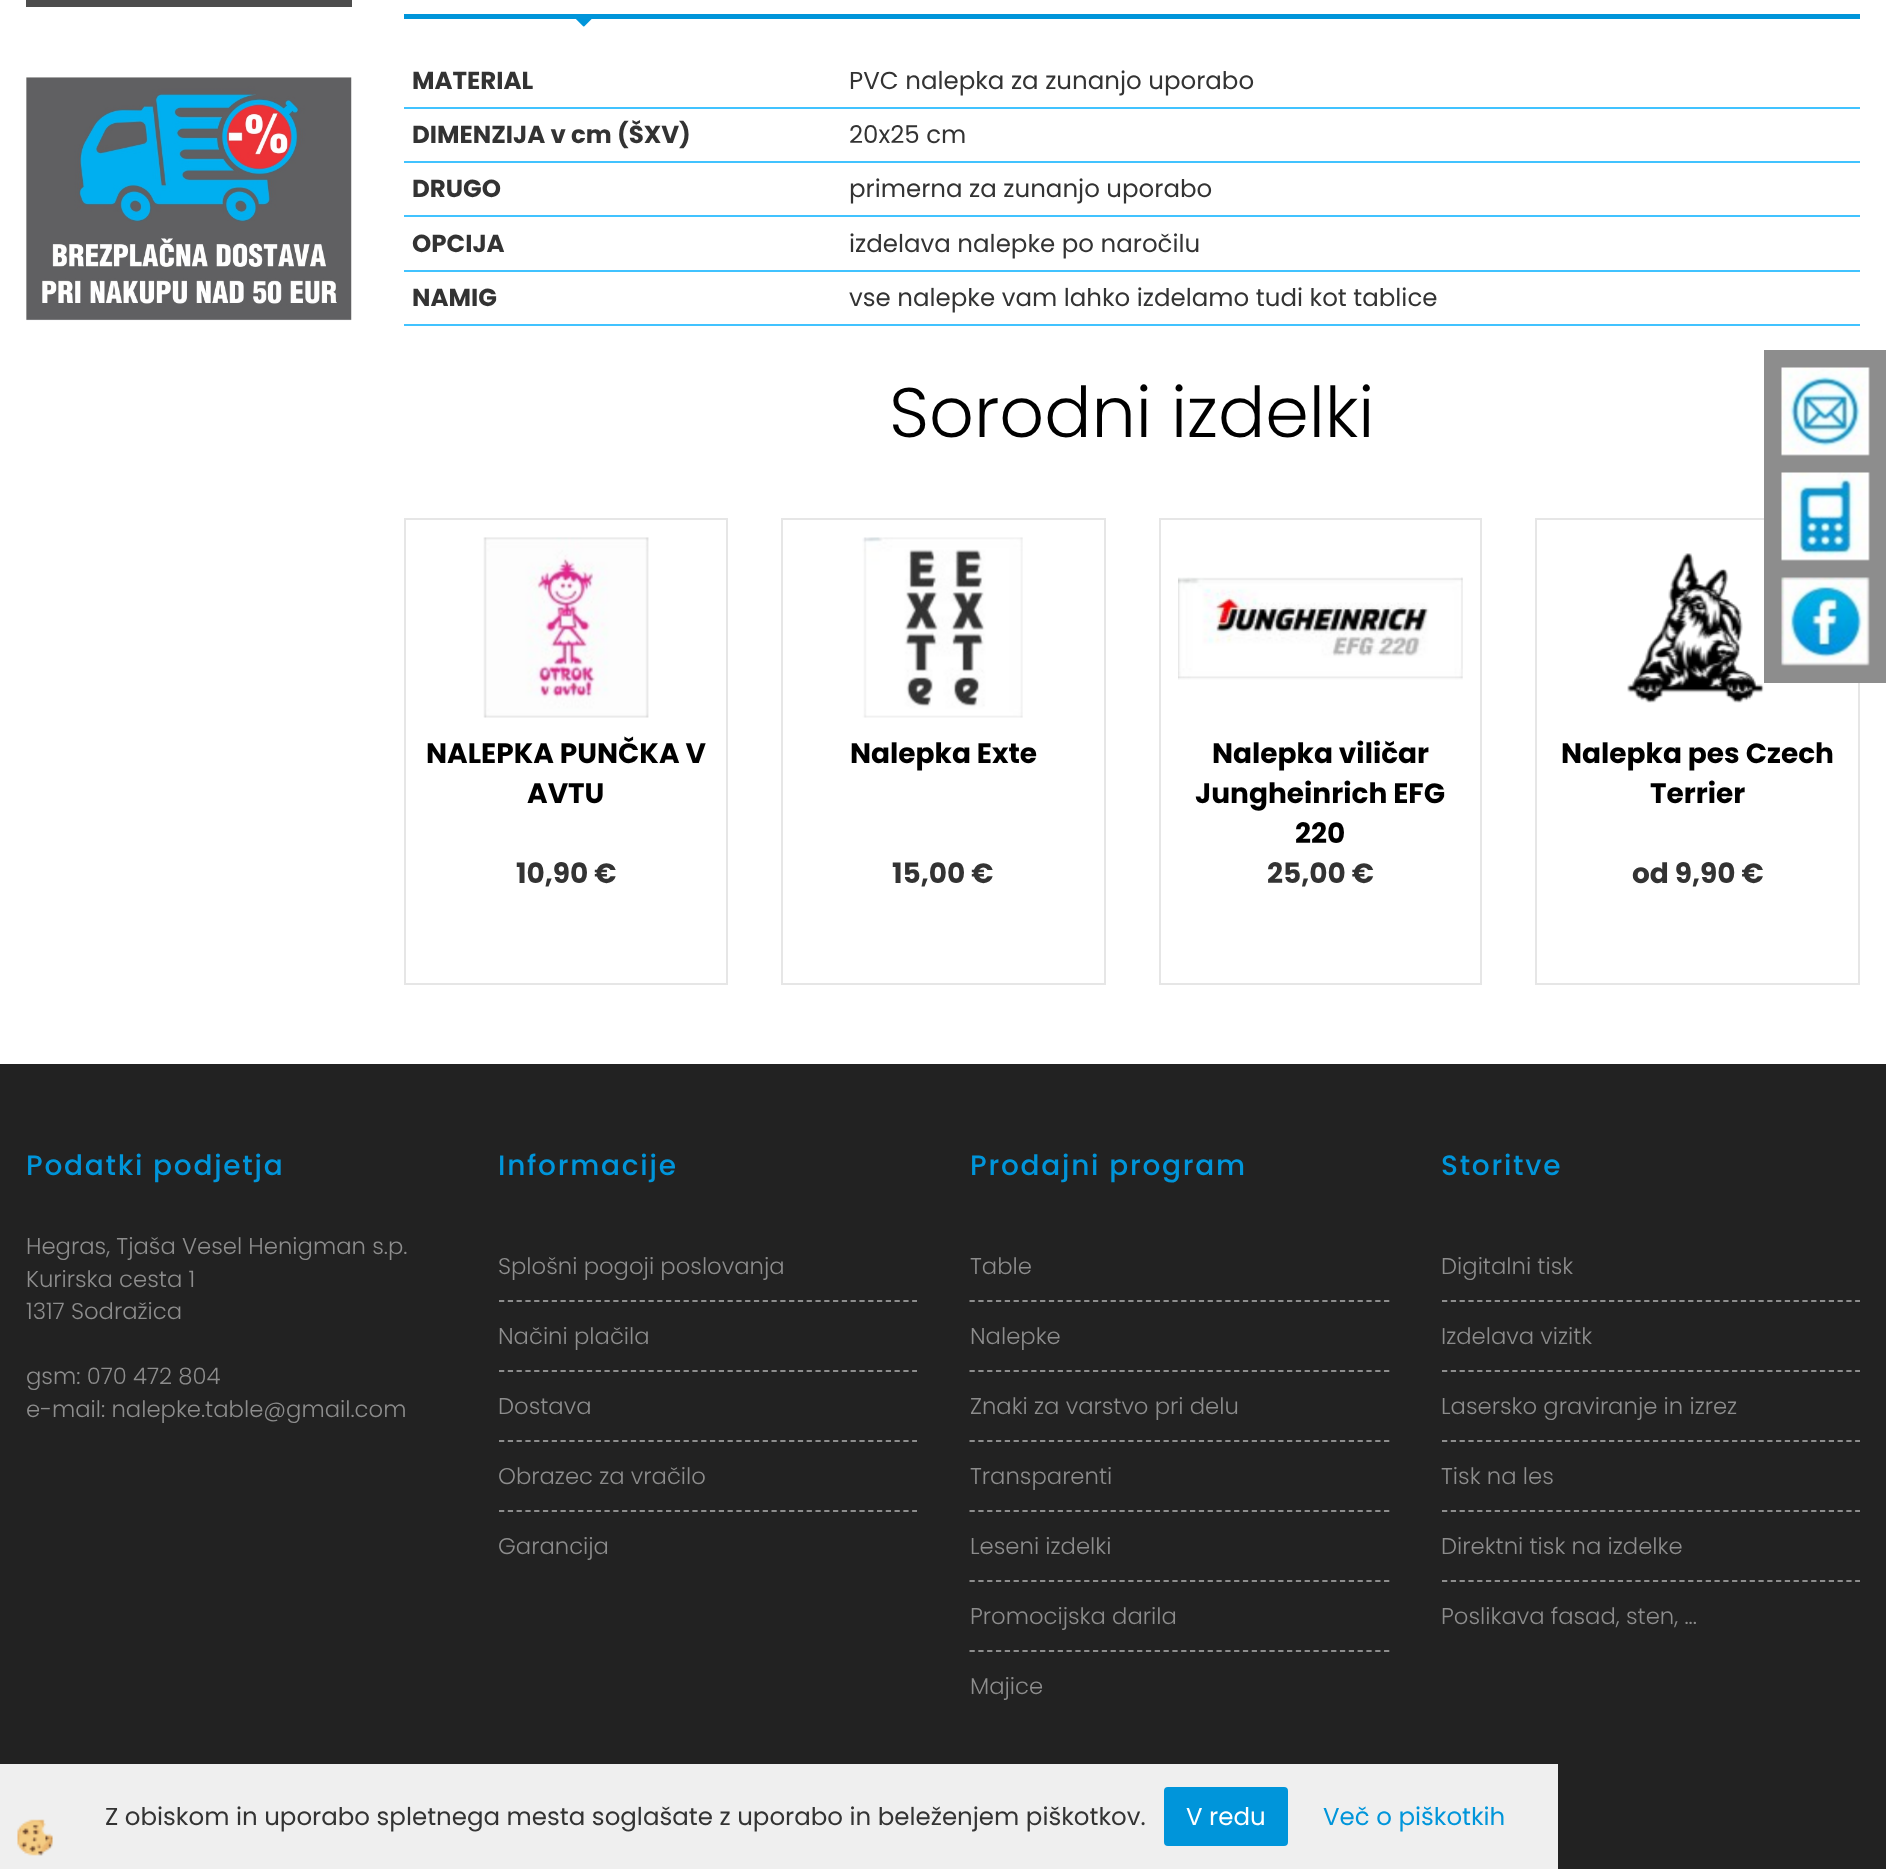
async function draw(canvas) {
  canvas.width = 1886;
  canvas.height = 1869;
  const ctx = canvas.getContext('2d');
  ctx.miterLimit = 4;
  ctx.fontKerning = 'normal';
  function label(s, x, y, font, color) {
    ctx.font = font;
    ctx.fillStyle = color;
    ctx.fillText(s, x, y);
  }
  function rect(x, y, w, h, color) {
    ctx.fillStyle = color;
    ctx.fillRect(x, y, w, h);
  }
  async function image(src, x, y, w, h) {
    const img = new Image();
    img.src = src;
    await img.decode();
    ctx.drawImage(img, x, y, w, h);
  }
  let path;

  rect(0, 0, 1886, 1869, '#fff');
  rect(26, 0, 326, 7, '#4d4d4d');
  await image('assets/img1.png', 26, 77, 326, 244);
  rect(404, 14, 1456, 5, '#0095da');
  await image('assets/img2.png', 576, 19, 16, 8);
  rect(404, 107, 1456, 2, '#41c3ff');
  label('MATERIAL', 412, 89, 'bold 24.5px Poppins', '#333');
  label('PVC nalepka za zunanjo uporabo', 849, 89, '24.5px Poppins', '#333');
  rect(404, 161, 1456, 2, '#41c3ff');
  label('DIMENZIJA v cm (ŠXV)', 412, 143, 'bold 24.5px Poppins', '#333');
  label('20x25 cm', 849, 143, '24.5px Poppins', '#333');
  rect(404, 215, 1456, 2, '#41c3ff');
  label('DRUGO', 412, 197, 'bold 24.5px Poppins', '#333');
  label('primerna za zunanjo uporabo', 849, 197, '24.5px Poppins', '#333');
  rect(404, 270, 1456, 2, '#41c3ff');
  label('OPCIJA', 412, 252, 'bold 24.5px Poppins', '#333');
  label('izdelava nalepke po naročilu', 849, 252, '24.5px Poppins', '#333');
  rect(404, 324, 1456, 2, '#41c3ff');
  label('NAMIG', 412, 306, 'bold 24.5px Poppins', '#333');
  label('vse nalepke vam lahko izdelamo tudi kot tablice', 849, 306, '24.5px Poppins', '#333');
  label('Sorodni izdelki', 889, 437, '300 70px Poppins', '#000');
  ctx.strokeStyle = '#e6e6e6';
  ctx.lineWidth = 2;
  ctx.strokeRect(405, 519, 322, 465);
  await image('assets/img3.png', 483, 537, 166, 181);
  label('NALEPKA PUNČKA V', 426, 763, 'bold 28px Poppins', '#000');
  label('AVTU', 527, 803, 'bold 28px Poppins', '#000');
  label('10,90 €', 516, 883, 'bold 28px Poppins', '#333');
  ctx.strokeRect(782, 519, 323, 465);
  await image('assets/img4.png', 862, 537, 161, 181);
  label('Nalepka Exte', 850, 763, 'bold 28px Poppins', '#000');
  label('15,00 €', 892, 883, 'bold 28px Poppins', '#333');
  ctx.strokeRect(1160, 519, 321, 465);
  await image('assets/img5.png', 1178, 577, 285, 103);
  label('Nalepka viličar', 1212, 763, 'bold 28px Poppins', '#000');
  label('Jungheinrich EFG', 1195, 803, 'bold 28px Poppins', '#000');
  label('220', 1295, 843, 'bold 28px Poppins', '#000');
  label('25,00 €', 1267, 883, 'bold 28px Poppins', '#333');
  ctx.strokeRect(1536, 519, 323, 465);
  await image('assets/img6.png', 1627, 553, 137, 150);
  label('Nalepka pes Czech', 1561, 763, 'bold 28px Poppins', '#000');
  label('Terrier', 1650, 803, 'bold 28px Poppins', '#000');
  label('od 9,90 €', 1632, 883, 'bold 28px Poppins', '#333');
  rect(0, 1064, 1886, 744, '#222');
  ctx.letterSpacing = '1.75px';
  label('Podatki podjetja', 26, 1175, '500 28px Poppins', '#0095da');
  ctx.letterSpacing = '0px';
  label('Hegras, Tjaša Vesel Henigman s.p.', 26, 1254, '300 22.75px Poppins', '#8d8d8d');
  label('Kurirska cesta 1', 26, 1287, '300 22.75px Poppins', '#8d8d8d');
  label('1317 Sodražica', 26, 1319, '300 22.75px Poppins', '#8d8d8d');
  label('gsm: 070 472 804', 26, 1384, '300 22.75px Poppins', '#8d8d8d');
  label('e-mail: nalepke.table@gmail.com', 26, 1417, '300 22.75px Poppins', '#8d8d8d');
  ctx.letterSpacing = '1.75px';
  label('Informacije', 498, 1175, '500 28px Poppins', '#0095da');
  path = new Path2D('M499 1301H917');
  ctx.strokeStyle = '#8d8d8d';
  ctx.lineWidth = 1.8;
  ctx.setLineDash([5.25, 3.54]);
  ctx.stroke(path);
  ctx.letterSpacing = '0px';
  label('Splošni pogoji poslovanja', 498, 1274, '300 22.75px Poppins', '#8d8d8d');
  path = new Path2D('M499 1371H917');
  ctx.stroke(path);
  label('Načini plačila', 498, 1344, '300 22.75px Poppins', '#8d8d8d');
  path = new Path2D('M499 1441H917');
  ctx.stroke(path);
  label('Dostava', 498, 1414, '300 22.75px Poppins', '#8d8d8d');
  path = new Path2D('M499 1511H917');
  ctx.stroke(path);
  label('Obrazec za vračilo', 498, 1484, '300 22.75px Poppins', '#8d8d8d');
  label('Garancija', 498, 1554, '300 22.75px Poppins', '#8d8d8d');
  ctx.letterSpacing = '1.75px';
  label('Prodajni program', 970, 1175, '500 28px Poppins', '#0095da');
  path = new Path2D('M969.5 1301H1389.5');
  ctx.setLineDash([5.25, 3.57]);
  ctx.stroke(path);
  ctx.letterSpacing = '0px';
  label('Table', 970, 1274, '300 22.75px Poppins', '#8d8d8d');
  path = new Path2D('M969.5 1371H1389.5');
  ctx.stroke(path);
  label('Nalepke', 970, 1344, '300 22.75px Poppins', '#8d8d8d');
  path = new Path2D('M969.5 1441H1389.5');
  ctx.stroke(path);
  label('Znaki za varstvo pri delu', 970, 1414, '300 22.75px Poppins', '#8d8d8d');
  path = new Path2D('M969.5 1511H1389.5');
  ctx.stroke(path);
  label('Transparenti', 970, 1484, '300 22.75px Poppins', '#8d8d8d');
  path = new Path2D('M969.5 1581H1389.5');
  ctx.stroke(path);
  label('Leseni izdelki', 970, 1554, '300 22.75px Poppins', '#8d8d8d');
  path = new Path2D('M969.5 1651H1389.5');
  ctx.stroke(path);
  label('Promocijska darila', 970, 1624, '300 22.75px Poppins', '#8d8d8d');
  label('Majice', 970, 1694, '300 22.75px Poppins', '#8d8d8d');
  ctx.letterSpacing = '1.75px';
  label('Storitve', 1441, 1175, '500 28px Poppins', '#0095da');
  path = new Path2D('M1442 1301H1860');
  ctx.setLineDash([5.25, 3.54]);
  ctx.stroke(path);
  ctx.letterSpacing = '0px';
  label('Digitalni tisk', 1441, 1274, '300 22.75px Poppins', '#8d8d8d');
  path = new Path2D('M1442 1371H1860');
  ctx.stroke(path);
  label('Izdelava vizitk', 1441, 1344, '300 22.75px Poppins', '#8d8d8d');
  path = new Path2D('M1442 1441H1860');
  ctx.stroke(path);
  label('Lasersko graviranje in izrez', 1441, 1414, '300 22.75px Poppins', '#8d8d8d');
  path = new Path2D('M1442 1511H1860');
  ctx.stroke(path);
  label('Tisk na les', 1441, 1484, '300 22.75px Poppins', '#8d8d8d');
  path = new Path2D('M1442 1581H1860');
  ctx.stroke(path);
  label('Direktni tisk na izdelke', 1441, 1554, '300 22.75px Poppins', '#8d8d8d');
  label('Poslikava fasad, sten, ...', 1441, 1624, '300 22.75px Poppins', '#8d8d8d');
  rect(1558, 1808, 328, 61, '#222');
  rect(1764, 350, 122, 333, '#8d8d8d');
  await image('assets/img7.png', 1781, 367, 89, 89);
  await image('assets/img8.png', 1781, 472, 89, 89);
  await image('assets/img9.png', 1781, 577, 89, 89);
  rect(0, 1764, 1558, 105, '#efefef');
  await image('assets/img10.png', 17, 1819, 36, 37);
  label('Z obiskom in uporabo spletnega mesta soglašate z uporabo in beleženjem piškotkov.', 105, 1825, '24.5px Poppins', '#333');
  ctx.fillStyle = '#0095da';
  ctx.beginPath();
  ctx.roundRect(1165, 1788, 122, 57, 3);
  ctx.fill();
  ctx.strokeStyle = '#0095da';
  ctx.lineWidth = 2;
  ctx.setLineDash([]);
  ctx.stroke();
  label('V redu', 1186, 1825, '24.5px Poppins', '#fff');
  label('Več o piškotkih', 1323, 1825, '24.5px Poppins', '#0095da');
}

draw(document.querySelector('canvas'));
